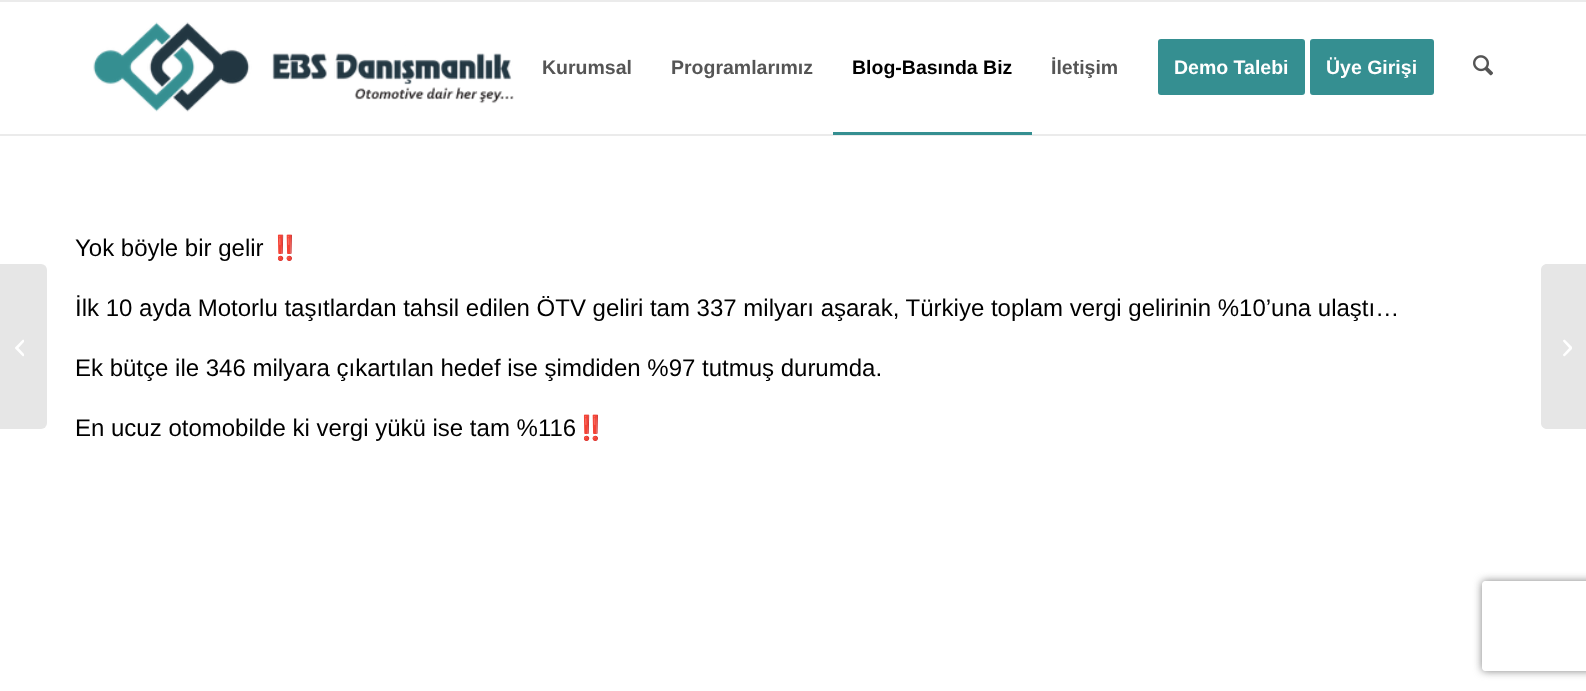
async function draw(canvas) {
  canvas.width = 1586;
  canvas.height = 691;
  const ctx = canvas.getContext('2d');
  ctx.miterLimit = 4;
  ctx.fontKerning = 'normal';
  function label(s, x, y, font, color) {
    ctx.font = font;
    ctx.fillStyle = color;
    ctx.fillText(s, x, y);
  }
  function rect(x, y, w, h, color) {
    ctx.fillStyle = color;
    ctx.fillRect(x, y, w, h);
  }
  async function image(src, x, y, w, h) {
    const img = new Image();
    img.src = src;
    await img.decode();
    ctx.drawImage(img, x, y, w, h);
  }
  let path;

  rect(0, 0, 1586, 691, '#fff');
  rect(0, 0, 1586, 2, '#ebebeb');
  rect(0, 134, 1586, 2, '#ebebeb');
  await image('assets/img1.png', 93, 22, 421, 90);
  label('Kurumsal', 542, 74, 'bold 19.5px Liberation Sans', '#555');
  label('Programlarımız', 671, 74, 'bold 19.5px Liberation Sans', '#555');
  label('Blog-Basında Biz', 852, 74, 'bold 19.5px Liberation Sans', '#000');
  rect(833, 132, 199, 3, '#358f91');
  label('İletişim', 1051, 74, 'bold 19.5px Liberation Sans', '#555');
  ctx.fillStyle = '#358f91';
  ctx.beginPath();
  ctx.roundRect(1159.5, 40.5, 144, 53, 1.5);
  ctx.fill();
  ctx.strokeStyle = '#358f91';
  ctx.lineWidth = 3;
  ctx.stroke();
  label('Demo Talebi', 1174, 74, 'bold 19.5px Liberation Sans', '#fff');
  ctx.fillStyle = '#358f91';
  ctx.beginPath();
  ctx.roundRect(1311.5, 40.5, 121, 53, 1.5);
  ctx.fill();
  ctx.stroke();
  label('Üye Girişi', 1326, 74, 'bold 19.5px Liberation Sans', '#fff');
  await image('assets/img2.png', 1473, 55, 20, 21);
  ctx.fillStyle = '#e6e6e6';
  ctx.beginPath();
  ctx.roundRect(0, 264, 47, 165, [0, 6, 6, 0]);
  ctx.fill();
  await image('assets/img3.png', 15, 339, 9, 18);
  label('Yok böyle bir gelir', 75, 256, '24px Liberation Sans', '#000');
  label('‼️', 270, 256, '24px Noto Color Emoji', '#000');
  label('İlk 10 ayda Motorlu taşıtlardan tahsil edilen ÖTV geliri tam 337 milyarı aşarak, Türkiye toplam vergi gelirinin %10’una ulaştı…', 75, 316, '24px Liberation Sans', '#000');
  label('Ek bütçe ile 346 milyara çıkartılan hedef ise şimdiden %97 tutmuş durumda.', 75, 376, '24px Liberation Sans', '#000');
  label('En ucuz otomobilde ki vergi yükü ise tam %116', 75, 436, '24px Liberation Sans', '#000');
  label('‼️', 576, 436, '24px Noto Color Emoji', '#000');
  ctx.fillStyle = '#e6e6e6';
  path = new Path2D('M1547 264H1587V429H1547C1543.5 429 1541 426.5 1541 423V270C1541 266.5 1543.5 264 1547 264Z');
  ctx.fill(path);
  await image('assets/img4.png', 1563, 339, 9, 18);
  ctx.save();
  path = new Path2D('M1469 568H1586V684H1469ZM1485 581H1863C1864.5 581 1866 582.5 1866 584V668C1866 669.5 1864.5 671 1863 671H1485C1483.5 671 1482 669.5 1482 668V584C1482 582.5 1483.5 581 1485 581Z');
  ctx.clip(path, 'evenodd');
  ctx.fillStyle = '#808080';
  ctx.filter = 'blur(4px)';
  ctx.beginPath();
  ctx.roundRect(1482, 581, 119, 90, 3);
  ctx.fill();
  ctx.filter = 'none';
  ctx.restore();
}

draw(document.querySelector('canvas'));
